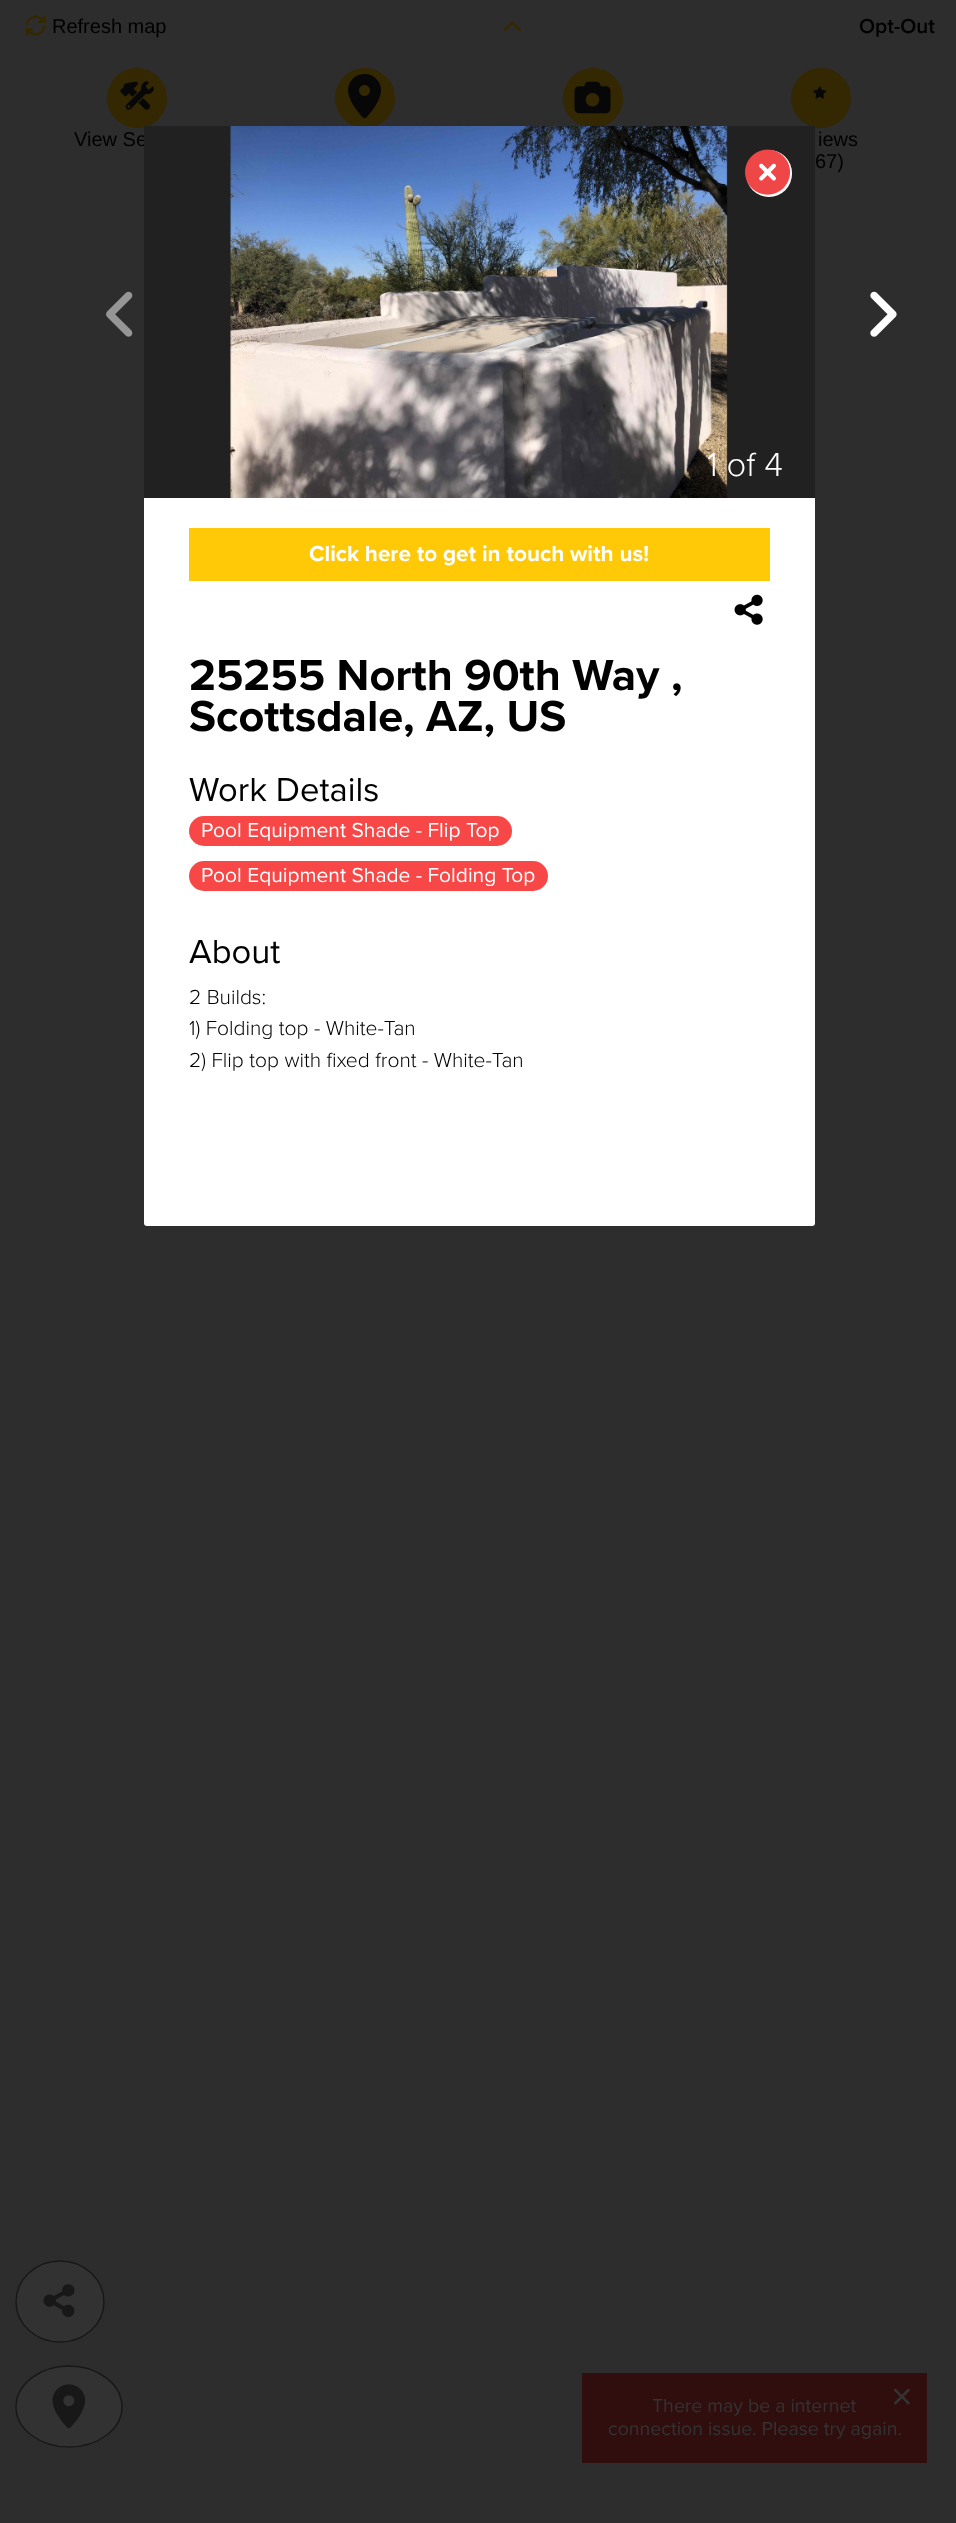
async function draw(canvas) {
  canvas.width = 956;
  canvas.height = 2523;
  const ctx = canvas.getContext('2d');
  ctx.miterLimit = 4;
  ctx.fontKerning = 'normal';
  function label(s, x, y, font, color) {
    ctx.font = font;
    ctx.fillStyle = color;
    ctx.fillText(s, x, y);
  }
  function rect(x, y, w, h, color) {
    ctx.fillStyle = color;
    ctx.fillRect(x, y, w, h);
  }
  function roundedRect(x, y, w, h, r, color) {
    ctx.fillStyle = color;
    ctx.beginPath();
    ctx.roundRect(x, y, w, h, r);
    ctx.fill();
  }
  async function image(src, x, y, w, h) {
    const img = new Image();
    img.src = src;
    await img.decode();
    ctx.drawImage(img, x, y, w, h);
  }
  let path;

  rect(0, 0, 956, 2523, '#2e2d2d');
  await image('assets/img1.png', 25, 15, 21, 21);
  label('Refresh map', 52, 33, '20px Liberation Sans', '#000');
  await image('assets/img2.png', 503, 21, 18, 11);
  label('Opt-Out', 859, 33, '600 21px Proxima Nova', '#000');
  ctx.fillStyle = '#332802';
  ctx.beginPath();
  ctx.arc(365, 98, 30, 0, 2 * Math.PI);
  ctx.fill();
  await image('assets/img3.png', 348, 74, 33, 45);
  ctx.beginPath();
  ctx.arc(593, 98, 30, 0, 2 * Math.PI);
  ctx.fill();
  await image('assets/img4.png', 574, 81, 37, 33);
  ctx.beginPath();
  ctx.arc(137, 98, 30, 0, 2 * Math.PI);
  ctx.fill();
  await image('assets/img5.png', 120, 81, 34, 29);
  label('View Se', 74, 146, '20px Liberation Sans', '#000');
  ctx.fillStyle = '#332802';
  ctx.beginPath();
  ctx.arc(821, 98, 30, 0, 2 * Math.PI);
  ctx.fill();
  await image('assets/img6.png', 813, 86, 14, 13);
  label('iews', 818, 146, '20px Liberation Sans', '#000');
  label('67)', 815, 168, '20px Liberation Sans', '#000');
  ctx.fillStyle = '#323232';
  ctx.beginPath();
  ctx.ellipse(60, 2302, 45, 41, 0, 0, 2 * Math.PI);
  ctx.fill();
  path = new Path2D('M60 2261C84.5 2261 104 2279.5 104 2302C104 2324 84.5 2342 60 2342C35.5 2342 16 2324 16 2302C16 2279.5 35.5 2261 60 2261Z');
  ctx.strokeStyle = '#181818';
  ctx.lineWidth = 1.5;
  ctx.stroke(path);
  await image('assets/img7.png', 43, 2284, 32, 34);
  ctx.beginPath();
  ctx.ellipse(69, 2407, 54, 41, 0, 0, 2 * Math.PI);
  ctx.fill();
  path = new Path2D('M69 2366C98.5 2366 122 2384.5 122 2407C122 2429 98.5 2447 69 2447C39.5 2447 16 2429 16 2407C16 2384.5 39.5 2366 69 2366Z');
  ctx.stroke(path);
  await image('assets/img8.png', 52, 2384, 34, 45);
  roundedRect(144, 126, 671, 1100, 3, '#fff');
  rect(144, 126, 671, 372, '#212121');
  roundedRect(746, 150, 46, 47, 23, '#fff');
  await image('assets/img9.png', 745, 149, 46, 46);
  await image('assets/img10.png', 106, 291, 27, 46);
  await image('assets/img11.png', 230, 126, 498, 372);
  await image('assets/img12.png', 870, 291, 27, 46);
  label('1 of 4', 707, 476, '300 34.5px Proxima Nova', '#fff');
  rect(189, 528, 581, 53, '#ffc908');
  label('Click here to get in touch with us!', 309, 561, 'bold 22.5px Proxima Nova', '#fff');
  await image('assets/img13.png', 734, 594, 29, 31);
  label('25255 North 90th Way ,', 189, 690, 'bold 45px Proxima Nova', '#000');
  label('Scottsdale, AZ, US', 189, 731, 'bold 45px Proxima Nova', '#000');
  label('Work Details', 189, 801, '34.5px Proxima Nova', '#000');
  roundedRect(189, 816, 323, 30, 15, '#f74747');
  label('Pool Equipment Shade - Flip Top', 201, 837, '21px Proxima Nova', '#fff');
  roundedRect(189, 861, 359, 30, 15, '#f74747');
  label('Pool Equipment Shade - Folding Top', 201, 882, '21px Proxima Nova', '#fff');
  label('About', 189, 963, '34.5px Proxima Nova', '#000');
  label('2 Builds:', 189, 1004, '300 21px Proxima Nova', '#000');
  label('1) Folding top - White-Tan', 189, 1035, '300 21px Proxima Nova', '#000');
  label('2) Flip top with fixed front - White-Tan', 189, 1067, '300 21px Proxima Nova', '#000');
  rect(582, 2373, 345, 90, '#300e0e');
  await image('assets/img14.png', 894, 2388, 16, 17);
  label('There may be a internet', 652, 2412, '19.5px Proxima Nova', '#333');
  label('connection issue. Please try again.', 608, 2435, '19.5px Proxima Nova', '#333');
}

draw(document.querySelector('canvas'));
